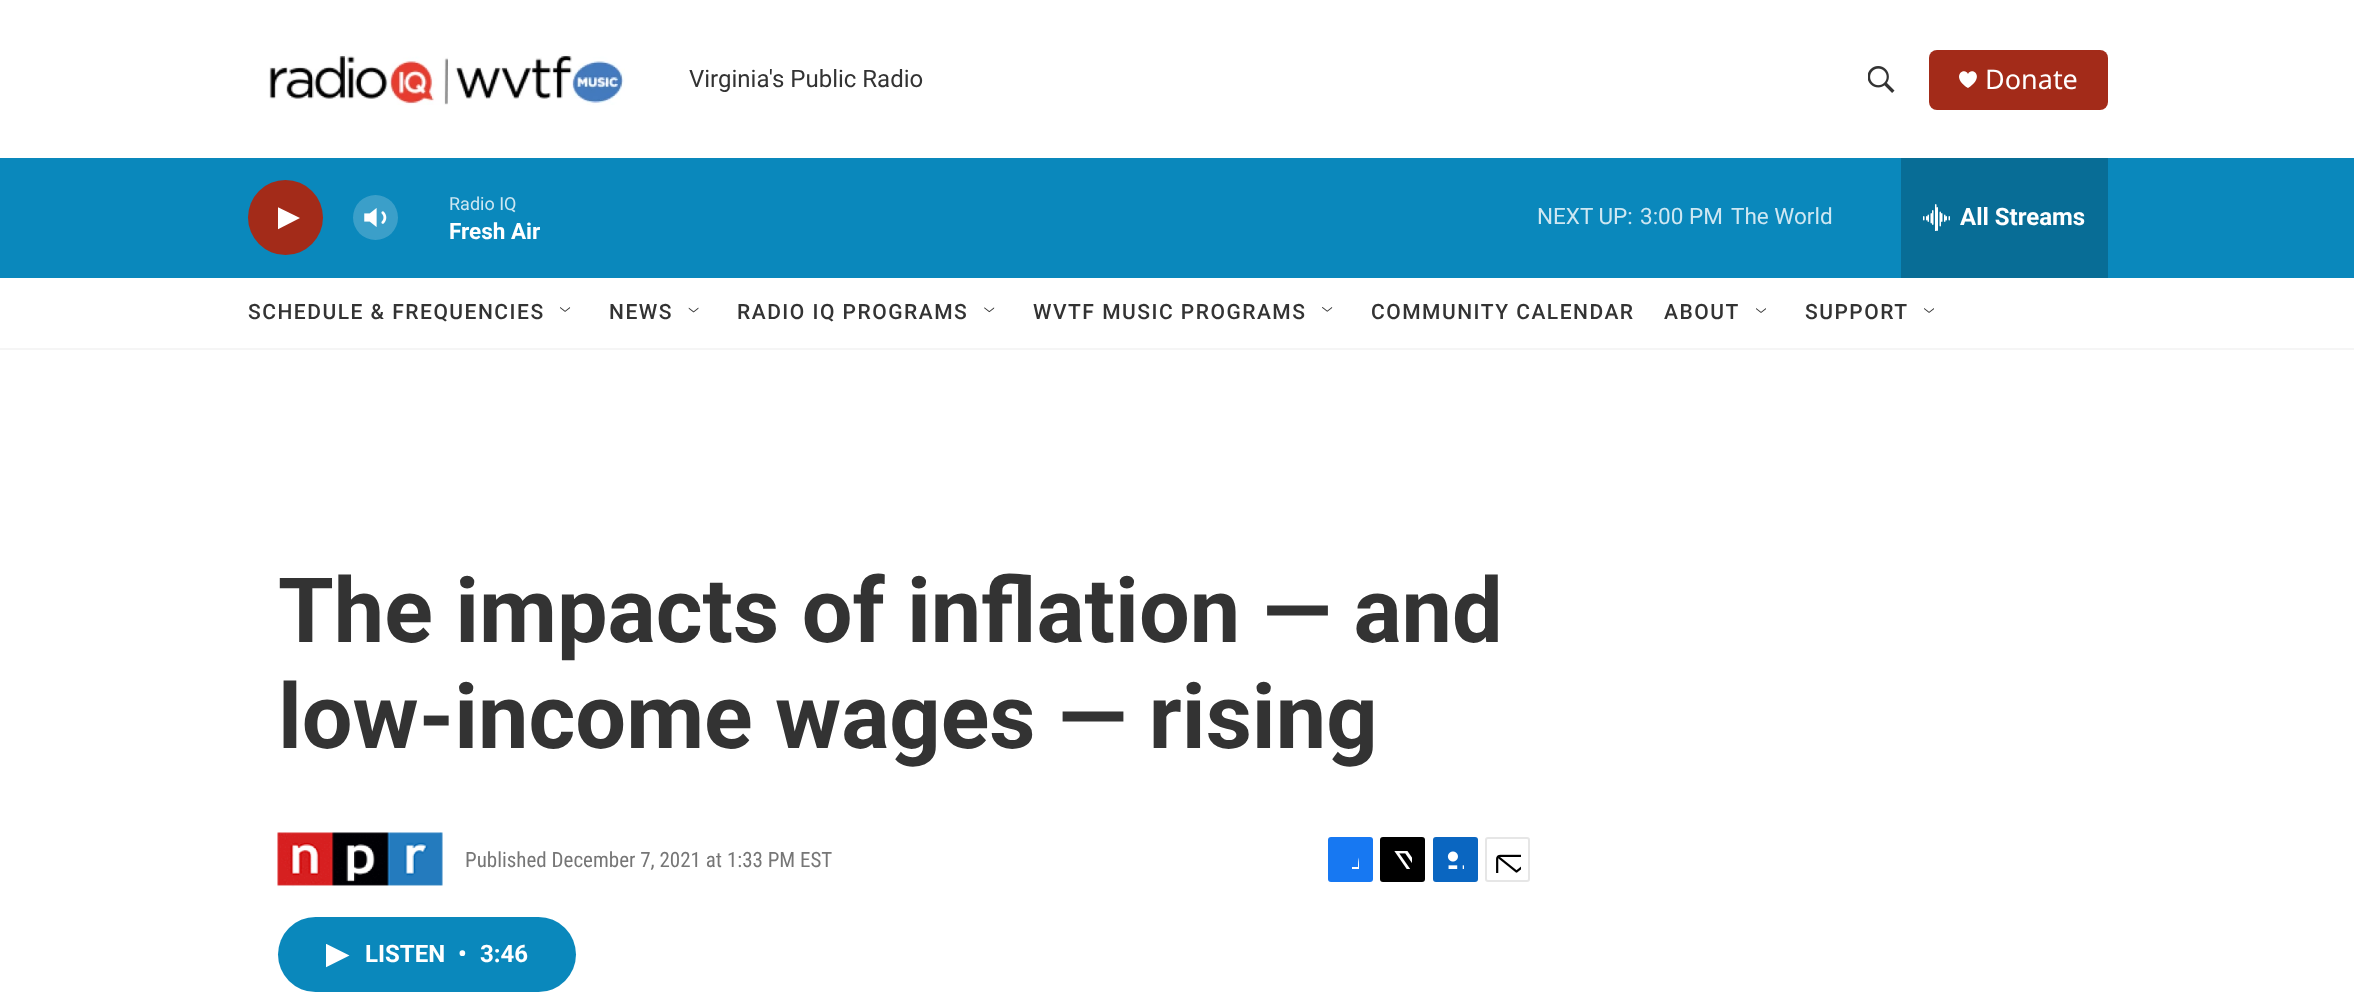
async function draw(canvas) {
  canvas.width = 2354;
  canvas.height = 1000;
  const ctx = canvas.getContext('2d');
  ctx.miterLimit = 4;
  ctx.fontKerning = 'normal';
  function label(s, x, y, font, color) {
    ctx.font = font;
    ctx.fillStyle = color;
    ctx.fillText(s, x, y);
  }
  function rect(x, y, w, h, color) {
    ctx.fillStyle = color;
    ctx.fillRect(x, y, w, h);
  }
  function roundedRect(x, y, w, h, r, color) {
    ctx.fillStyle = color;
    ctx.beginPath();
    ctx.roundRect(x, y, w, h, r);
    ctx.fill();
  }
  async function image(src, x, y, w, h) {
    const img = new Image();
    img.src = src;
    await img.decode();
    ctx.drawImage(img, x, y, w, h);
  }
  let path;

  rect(0, 0, 2354, 1000, '#fff');
  rect(0, 348, 2354, 2, '#f5f5f5');
  await image('assets/img1.png', 269, 54, 356, 51);
  label('Virginia\'s Public Radio', 689, 87, '24px Roboto', '#333');
  await image('assets/img2.png', 1868, 66, 27, 27);
  roundedRect(1929, 50, 179, 60, 8, '#a32b19');
  ctx.fillStyle = '#fff';
  path = new Path2D('M1968 74C1965 66 1949.5 76 1968 88C1986.5 76 1971 66 1968 74Z');
  ctx.fill(path);
  label('Donate', 1985, 89, '27px Noto Sans', '#fff');
  rect(0, 158, 2354, 120, '#0a88bc');
  ctx.fillStyle = '#a32b19';
  ctx.beginPath();
  ctx.arc(285.5, 217.5, 37.5, 0, 2 * Math.PI);
  ctx.fill();
  ctx.save();
  ctx.beginPath();
  ctx.rect(278, 204, 22, 29);
  ctx.clip();
  ctx.fillStyle = '#fff';
  path = new Path2D('M277.5 207L300 218L277.5 229.5Z');
  ctx.fill(path);
  ctx.restore();
  await image('assets/img3.png', 364, 208, 23, 19);
  ctx.fillStyle = '#ffffff33';
  ctx.beginPath();
  ctx.arc(375.5, 217.5, 22.5, 0, 2 * Math.PI);
  ctx.fill();
  label('Radio IQ', 449, 210, '18px Roboto', '#cee7f2');
  label('Fresh Air', 449, 239, 'bold 22.5px "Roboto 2"', '#fff');
  label('NEXT UP:', 1537, 224, '22.5px Roboto', '#cee7f2');
  label('3:00 PM', 1640, 224, '22.5px Roboto', '#cee7f2');
  label('The World', 1731, 224, '22.5px Roboto', '#cee7f2');
  rect(1901, 158, 207, 120, '#086d96');
  await image('assets/img4.png', 1923, 204, 27, 27);
  label('All Streams', 1960, 225, 'bold 24px "Roboto 2"', '#fff');
  ctx.letterSpacing = '1.5px';
  label('SCHEDULE & FREQUENCIES', 248, 319, '500 21px Roboto', '#333');
  await image('assets/img5.png', 560, 307, 11, 5);
  label('NEWS', 609, 319, '500 21px Roboto', '#333');
  await image('assets/img6.png', 688, 307, 11, 6);
  label('RADIO IQ PROGRAMS', 737, 319, '500 21px Roboto', '#333');
  await image('assets/img7.png', 984, 307, 11, 6);
  label('WVTF MUSIC PROGRAMS', 1033, 319, '500 21px Roboto', '#333');
  await image('assets/img8.png', 1322, 307, 11, 5);
  label('COMMUNITY CALENDAR', 1371, 319, '500 21px Roboto', '#333');
  label('ABOUT', 1664, 319, '500 21px Roboto', '#333');
  await image('assets/img9.png', 1756, 308, 10, 5);
  label('SUPPORT', 1805, 319, '500 21px Roboto', '#333');
  await image('assets/img10.png', 1924, 308, 10, 5);
  ctx.letterSpacing = '0px';
  label('The impacts of inflation — and', 278, 642, 'bold 90px Roboto', '#333');
  label('low-income wages — rising', 278, 748, 'bold 90px Roboto', '#333');
  await image('assets/img11.png', 277, 832, 166, 55);
  label('Published December 7, 2021 at 1:33 PM EST', 465, 867, '21px Roboto Condensed', '#767676');
  roundedRect(1328, 837, 45, 45, 3, '#1778f2');
  ctx.save();
  ctx.beginPath();
  ctx.rect(1341, 851, 18, 18);
  ctx.clip();
  ctx.fillStyle = '#fff';
  path = new Path2D('M1366 882H1358V875H1352V867H1358C1358 855.5 1360 849.5 1373 851V858C1365 858 1366 860.5 1366 867H1373L1372 875H1366Z');
  ctx.fill(path);
  ctx.restore();
  roundedRect(1380, 837, 45, 45, 3, '#000');
  await image('assets/img12.png', 1394, 851, 18, 18);
  roundedRect(1433, 837, 45, 45, 3, '#0a66c1');
  await image('assets/img13.png', 1447, 851, 17, 18);
  ctx.beginPath();
  ctx.roundRect(1486, 838, 43, 43, 2);
  ctx.strokeStyle = '#e6e6e6';
  ctx.lineWidth = 2;
  ctx.stroke();
  await image('assets/img14.png', 1496, 854, 25, 19);
  roundedRect(278, 917, 298, 75, 37.5, '#0a88bc');
  ctx.save();
  ctx.beginPath();
  ctx.rect(326, 944, 24, 24);
  ctx.clip();
  ctx.fillStyle = '#fff';
  path = new Path2D('M325.5 943.5L349.5 955.5L325.5 967.5Z');
  ctx.fill(path);
  ctx.restore();
  label('LISTEN', 365, 962, 'bold 24px "Roboto 2"', '#fff');
  label('•', 458, 962, 'bold 24px "Roboto 2"', '#fff');
  label('3:46', 480, 962, 'bold 24px "Roboto 2"', '#fff');
}

draw(document.querySelector('canvas'));
